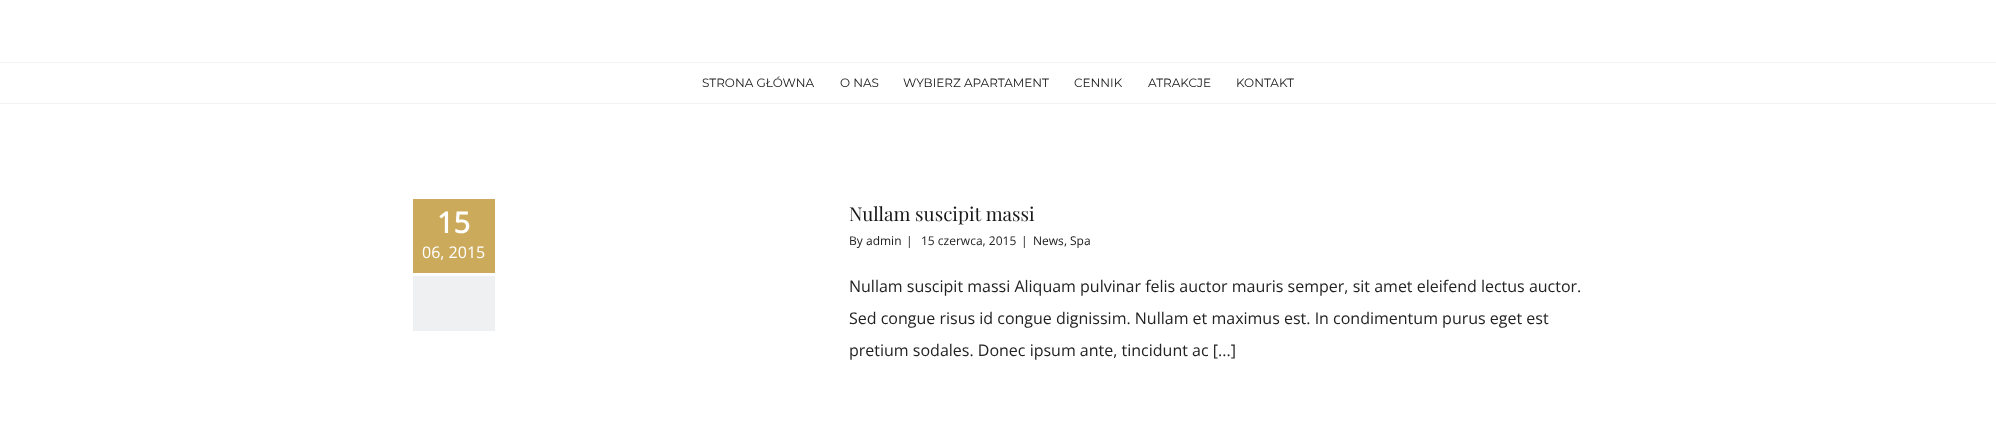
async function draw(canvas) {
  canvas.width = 1996;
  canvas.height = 441;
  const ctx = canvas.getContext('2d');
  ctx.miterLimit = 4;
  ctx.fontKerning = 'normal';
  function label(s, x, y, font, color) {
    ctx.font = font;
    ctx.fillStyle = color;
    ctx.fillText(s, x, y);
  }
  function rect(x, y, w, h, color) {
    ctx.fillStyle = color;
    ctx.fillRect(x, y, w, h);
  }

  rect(0, 0, 1996, 441, '#fff');
  rect(0, 62, 1996, 1, '#f2f2f2');
  rect(0, 103, 1996, 1, '#f2f2f2');
  label('STRONA GŁÓWNA', 702, 87, '100 12px Montserrat', '#171717');
  label('O NAS', 840, 87, '100 12px Montserrat', '#171717');
  label('WYBIERZ APARTAMENT', 903, 87, '100 12px Montserrat', '#171717');
  label('CENNIK', 1074, 87, '100 12px Montserrat', '#171717');
  label('ATRAKCJE', 1148, 87, '100 12px Montserrat', '#171717');
  label('KONTAKT', 1236, 87, '100 12px Montserrat', '#171717');
  rect(413, 199, 82, 74, '#cbaa5c');
  label('15', 437, 233, 'bold 29px Open Sans', '#fff');
  label('06, 2015', 422, 258, '16px Open Sans', '#fff');
  rect(413, 276, 82, 55, '#eef0f2');
  label('Nullam suscipit massi', 849, 221, '19px Playfair Display', '#171717');
  label('By', 849, 245, '12px Open Sans', '#222');
  label('admin', 866, 245, '12px Open Sans', '#171717');
  label('|', 906, 245, '12px Open Sans', '#222');
  label('15 czerwca, 2015', 921, 245, '12px Open Sans', '#222');
  label('|', 1021, 245, '12px Open Sans', '#222');
  label('News', 1033, 245, '12px Open Sans', '#171717');
  label(',', 1064, 245, '12px Open Sans', '#222');
  label('Spa', 1070, 245, '12px Open Sans', '#171717');
  label('Nullam suscipit massi Aliquam pulvinar felis auctor mauris semper, sit amet eleifend lectus auctor.', 849, 292, '16px Open Sans', '#222');
  label('Sed congue risus id congue dignissim. Nullam et maximus est. In condimentum purus eget est', 849, 324, '16px Open Sans', '#222');
  label('pretium sodales. Donec ipsum ante, tincidunt ac [...]', 849, 356, '16px Open Sans', '#222');
}

draw(document.querySelector('canvas'));
